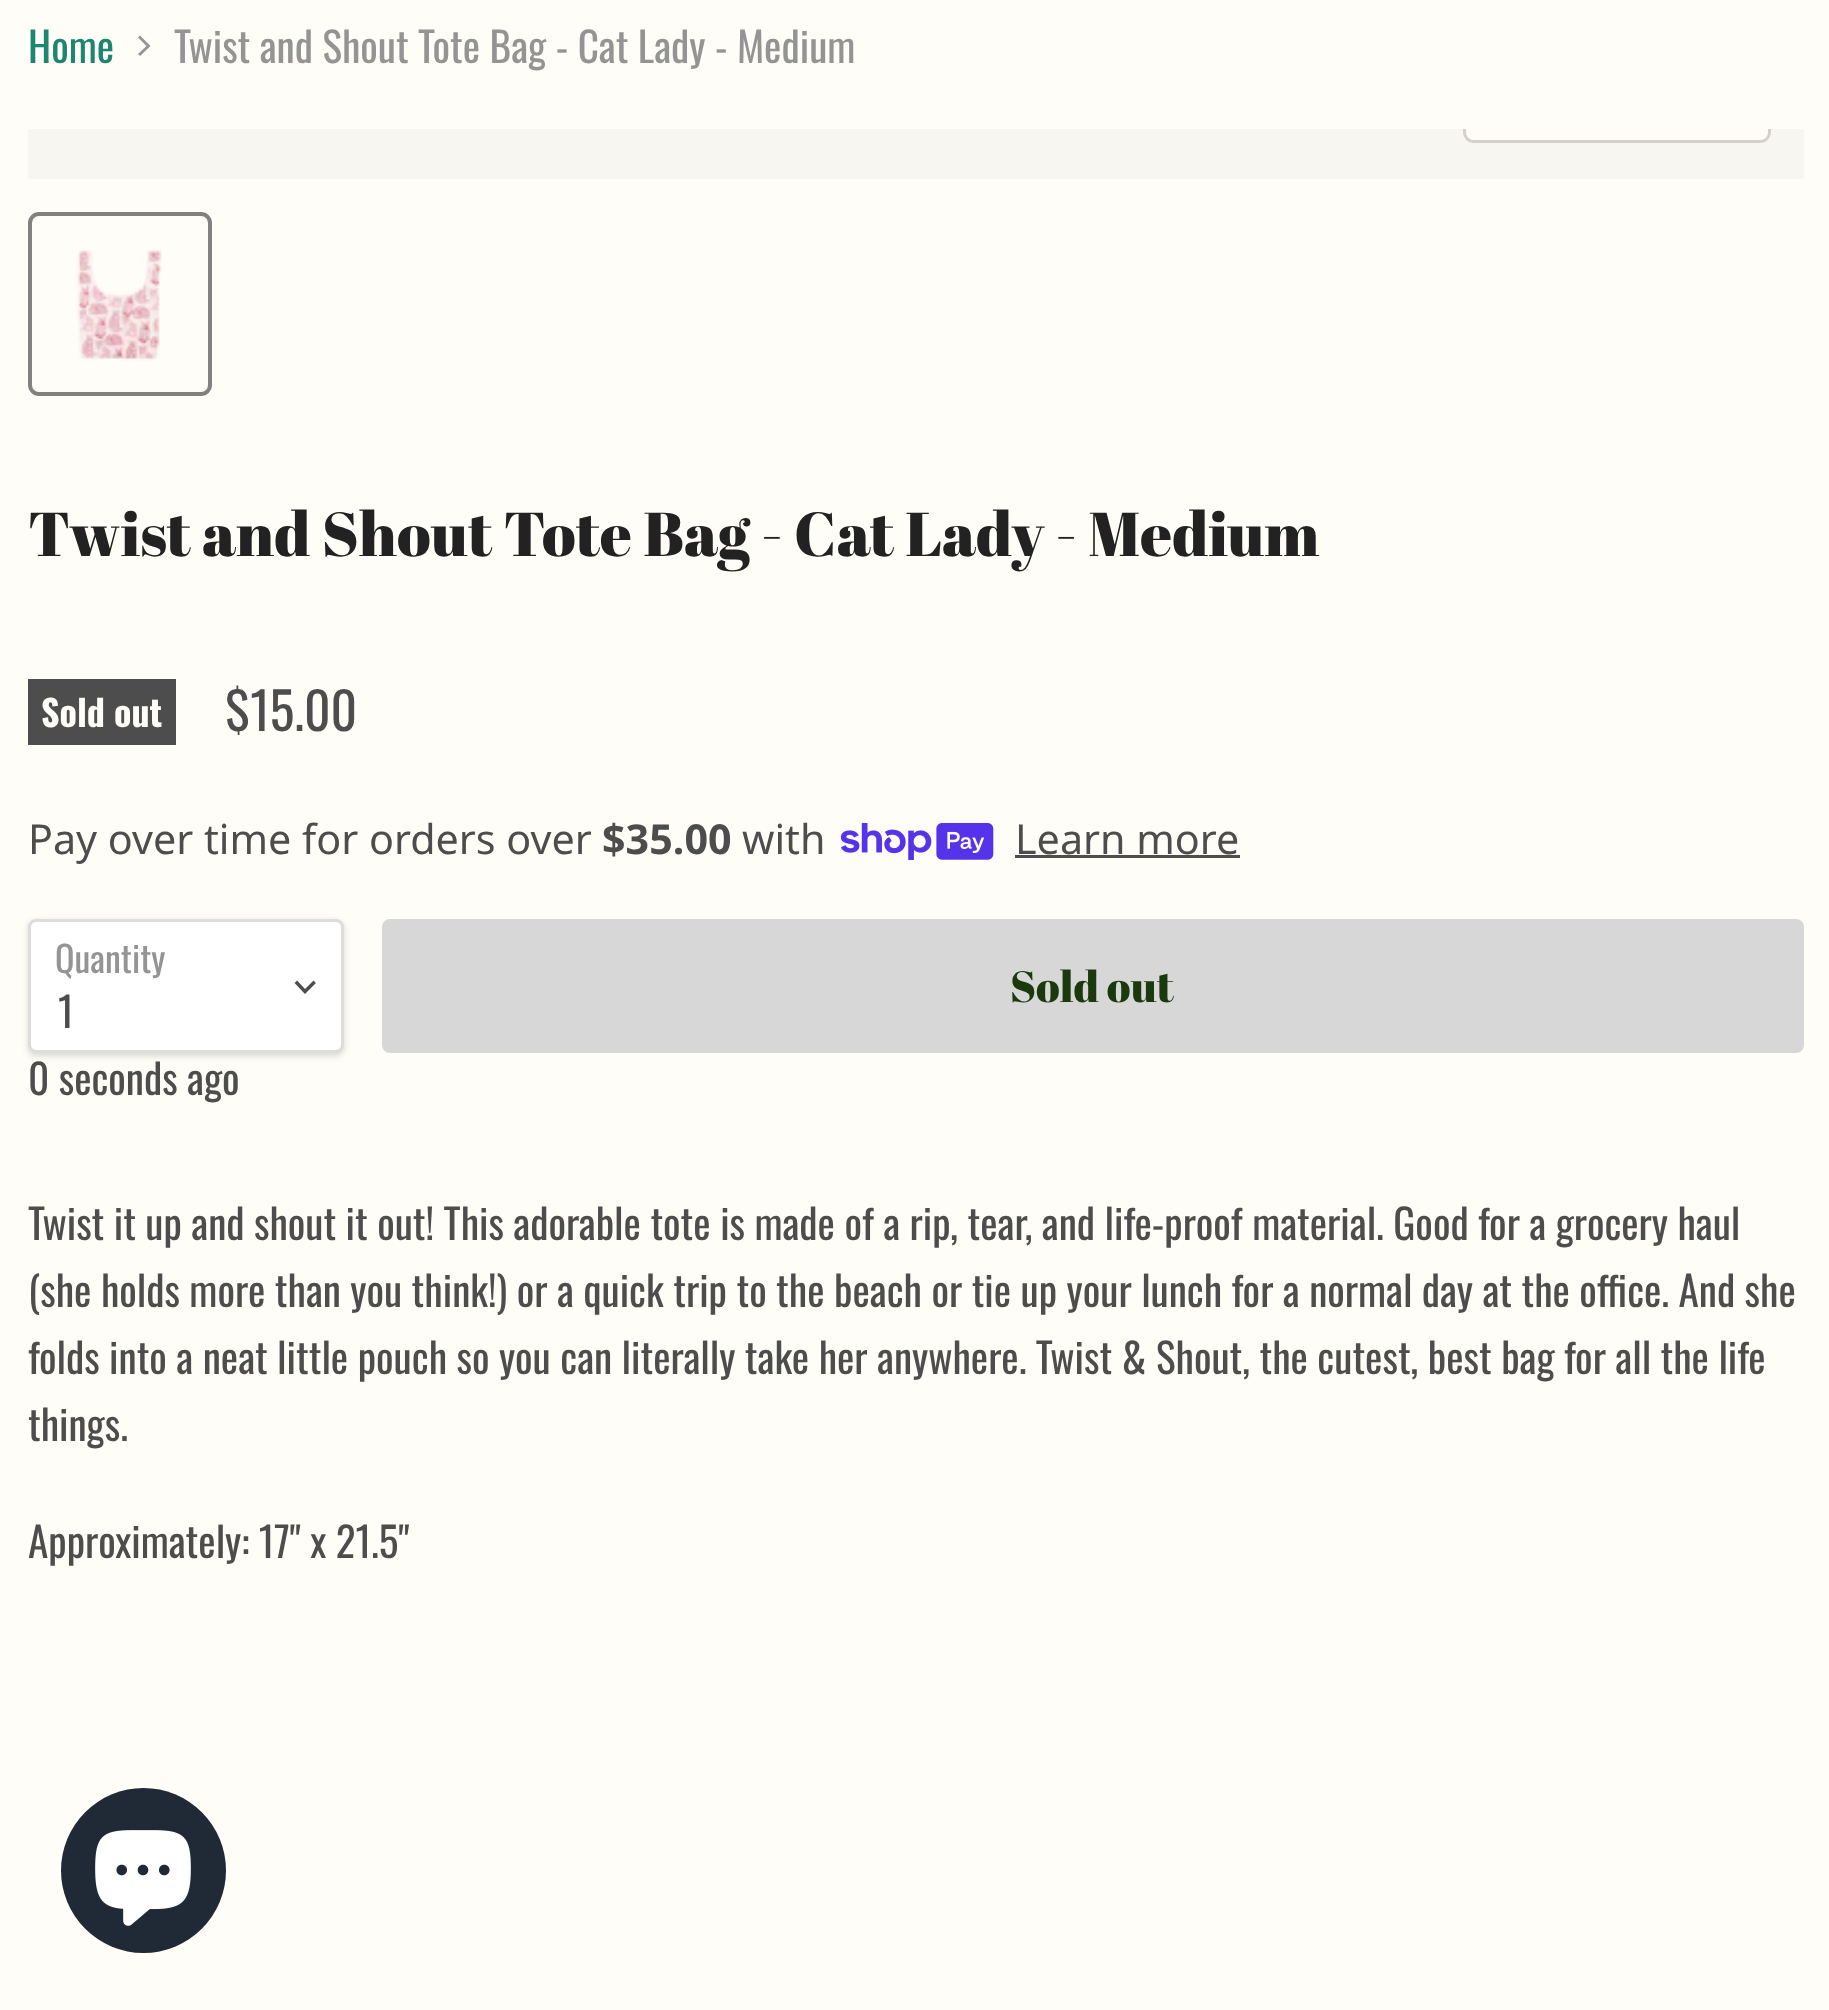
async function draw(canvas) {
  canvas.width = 1829;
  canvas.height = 2010;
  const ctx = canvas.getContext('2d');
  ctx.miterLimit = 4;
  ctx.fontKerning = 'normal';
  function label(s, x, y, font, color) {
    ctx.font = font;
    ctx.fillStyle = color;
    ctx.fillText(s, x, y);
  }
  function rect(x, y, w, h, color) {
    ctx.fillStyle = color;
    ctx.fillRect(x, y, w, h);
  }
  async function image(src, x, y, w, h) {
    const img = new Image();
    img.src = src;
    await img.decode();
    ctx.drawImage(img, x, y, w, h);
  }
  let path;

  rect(0, 0, 1829, 2010, '#fffdf8');
  label('Home', 28, 63, '41.25px Oswald', '#1e8570');
  ctx.fillStyle = '#949494';
  path = new Path2D('M138 54L140 56L150.5 46L140 35.5L138 37.5L146.5 46Z');
  ctx.fill(path, 'evenodd');
  label('Twist and Shout Tote Bag - Cat Lady - Medium', 174, 63, '41.25px Oswald', '#949494');
  rect(28, 129, 1776, 50, '#f8f6f1');
  ctx.save();
  ctx.beginPath();
  ctx.rect(28, 129, 1776, 50);
  ctx.clip();
  ctx.beginPath();
  ctx.roundRect(1464.5, 64.5, 305, 77, 9.5);
  ctx.strokeStyle = '#d3d1cd';
  ctx.lineWidth = 3;
  ctx.stroke();
  ctx.restore();
  ctx.fillStyle = '#fffdf8e6';
  ctx.beginPath();
  ctx.roundRect(1466, 129, 302, 11, [0, 0, 8, 8]);
  ctx.fill();
  ctx.beginPath();
  ctx.roundRect(30, 214, 180, 180, 9);
  ctx.strokeStyle = '#818181';
  ctx.lineWidth = 4;
  ctx.stroke();
  await image('assets/img1.png', 77, 250, 85, 111);
  label('Twist and Shout Tote Bag - Cat Lady - Medium', 28, 556, '61.9px Abril Fatface', '#222');
  rect(28, 679, 148, 66, '#4d4d4d');
  label('Sold out', 41, 727, 'bold 36px Oswald', '#fffdf8');
  label('$15.00', 225, 731, '51.5px Oswald', '#4d4d4d');
  label('Pay over time for orders over', 28, 854, '41.25px Noto Sans', '#4d4d4d');
  label('$35.00', 602, 854, 'bold 41.25px Noto Sans', '#4d4d4d');
  label('with', 742, 854, '41.25px Noto Sans', '#4d4d4d');
  await image('assets/img2.png', 840, 823, 154, 37);
  label('Learn more', 1015, 854, '41.25px Noto Sans', '#4d4d4d');
  rect(1015, 855, 225, 3, '#4d4d4d');
  ctx.fillStyle = '#00000026';
  ctx.filter = 'blur(3px)';
  ctx.beginPath();
  ctx.roundRect(28, 921, 316, 135, 8);
  ctx.fill();
  ctx.filter = 'none';
  ctx.fillStyle = '#fff';
  ctx.beginPath();
  ctx.roundRect(29.5, 920.5, 313, 131, 6.5);
  ctx.fill();
  ctx.strokeStyle = '#ddd';
  ctx.lineWidth = 3;
  ctx.stroke();
  label('Quantity', 55, 973, '36px Oswald', '#949494');
  path = new Path2D('M305 991.5L313.5 983M305 991.5L297 983');
  ctx.strokeStyle = '#4d4d4d';
  ctx.lineWidth = 3.4;
  ctx.lineCap = 'square';
  ctx.stroke(path);
  label('1', 58, 1028, '41.25px Oswald', '#4d4d4d');
  ctx.fillStyle = '#d7d7d7';
  ctx.beginPath();
  ctx.roundRect(383.5, 920.5, 1419, 131, 6.5);
  ctx.fill();
  ctx.strokeStyle = '#d7d7d7';
  ctx.lineWidth = 3;
  ctx.stroke();
  label('Sold out', 1010, 1002, '43.5px Abril Fatface', '#1a390c');
  label('0 seconds ago', 28, 1095, '41.25px Oswald', '#4d4d4d');
  label('Twist it up and shout it out! This adorable tote is made of a rip, tear, and life-proof material. Good for a grocery haul', 28, 1240, '41.25px Oswald', '#4d4d4d');
  label('(she holds more than you think!) or a quick trip to the beach or tie up your lunch for a normal day at the office. And she', 28, 1307, '41.25px Oswald', '#4d4d4d');
  label('folds into a neat little pouch so you can literally take her anywhere. Twist & Shout, the cutest, best bag for all the life', 28, 1374, '41.25px Oswald', '#4d4d4d');
  label('things.', 28, 1441, '41.25px Oswald', '#4d4d4d');
  label('Approximately: 17" x 21.5"', 28, 1558, '41.25px Oswald', '#4d4d4d');
  ctx.fillStyle = '#202a36';
  ctx.beginPath();
  ctx.arc(143.5, 1870.5, 82.5, 0, 2 * Math.PI);
  ctx.fill();
  await image('assets/img3.png', 95, 1830, 96, 96);
}

draw(document.querySelector('canvas'));
